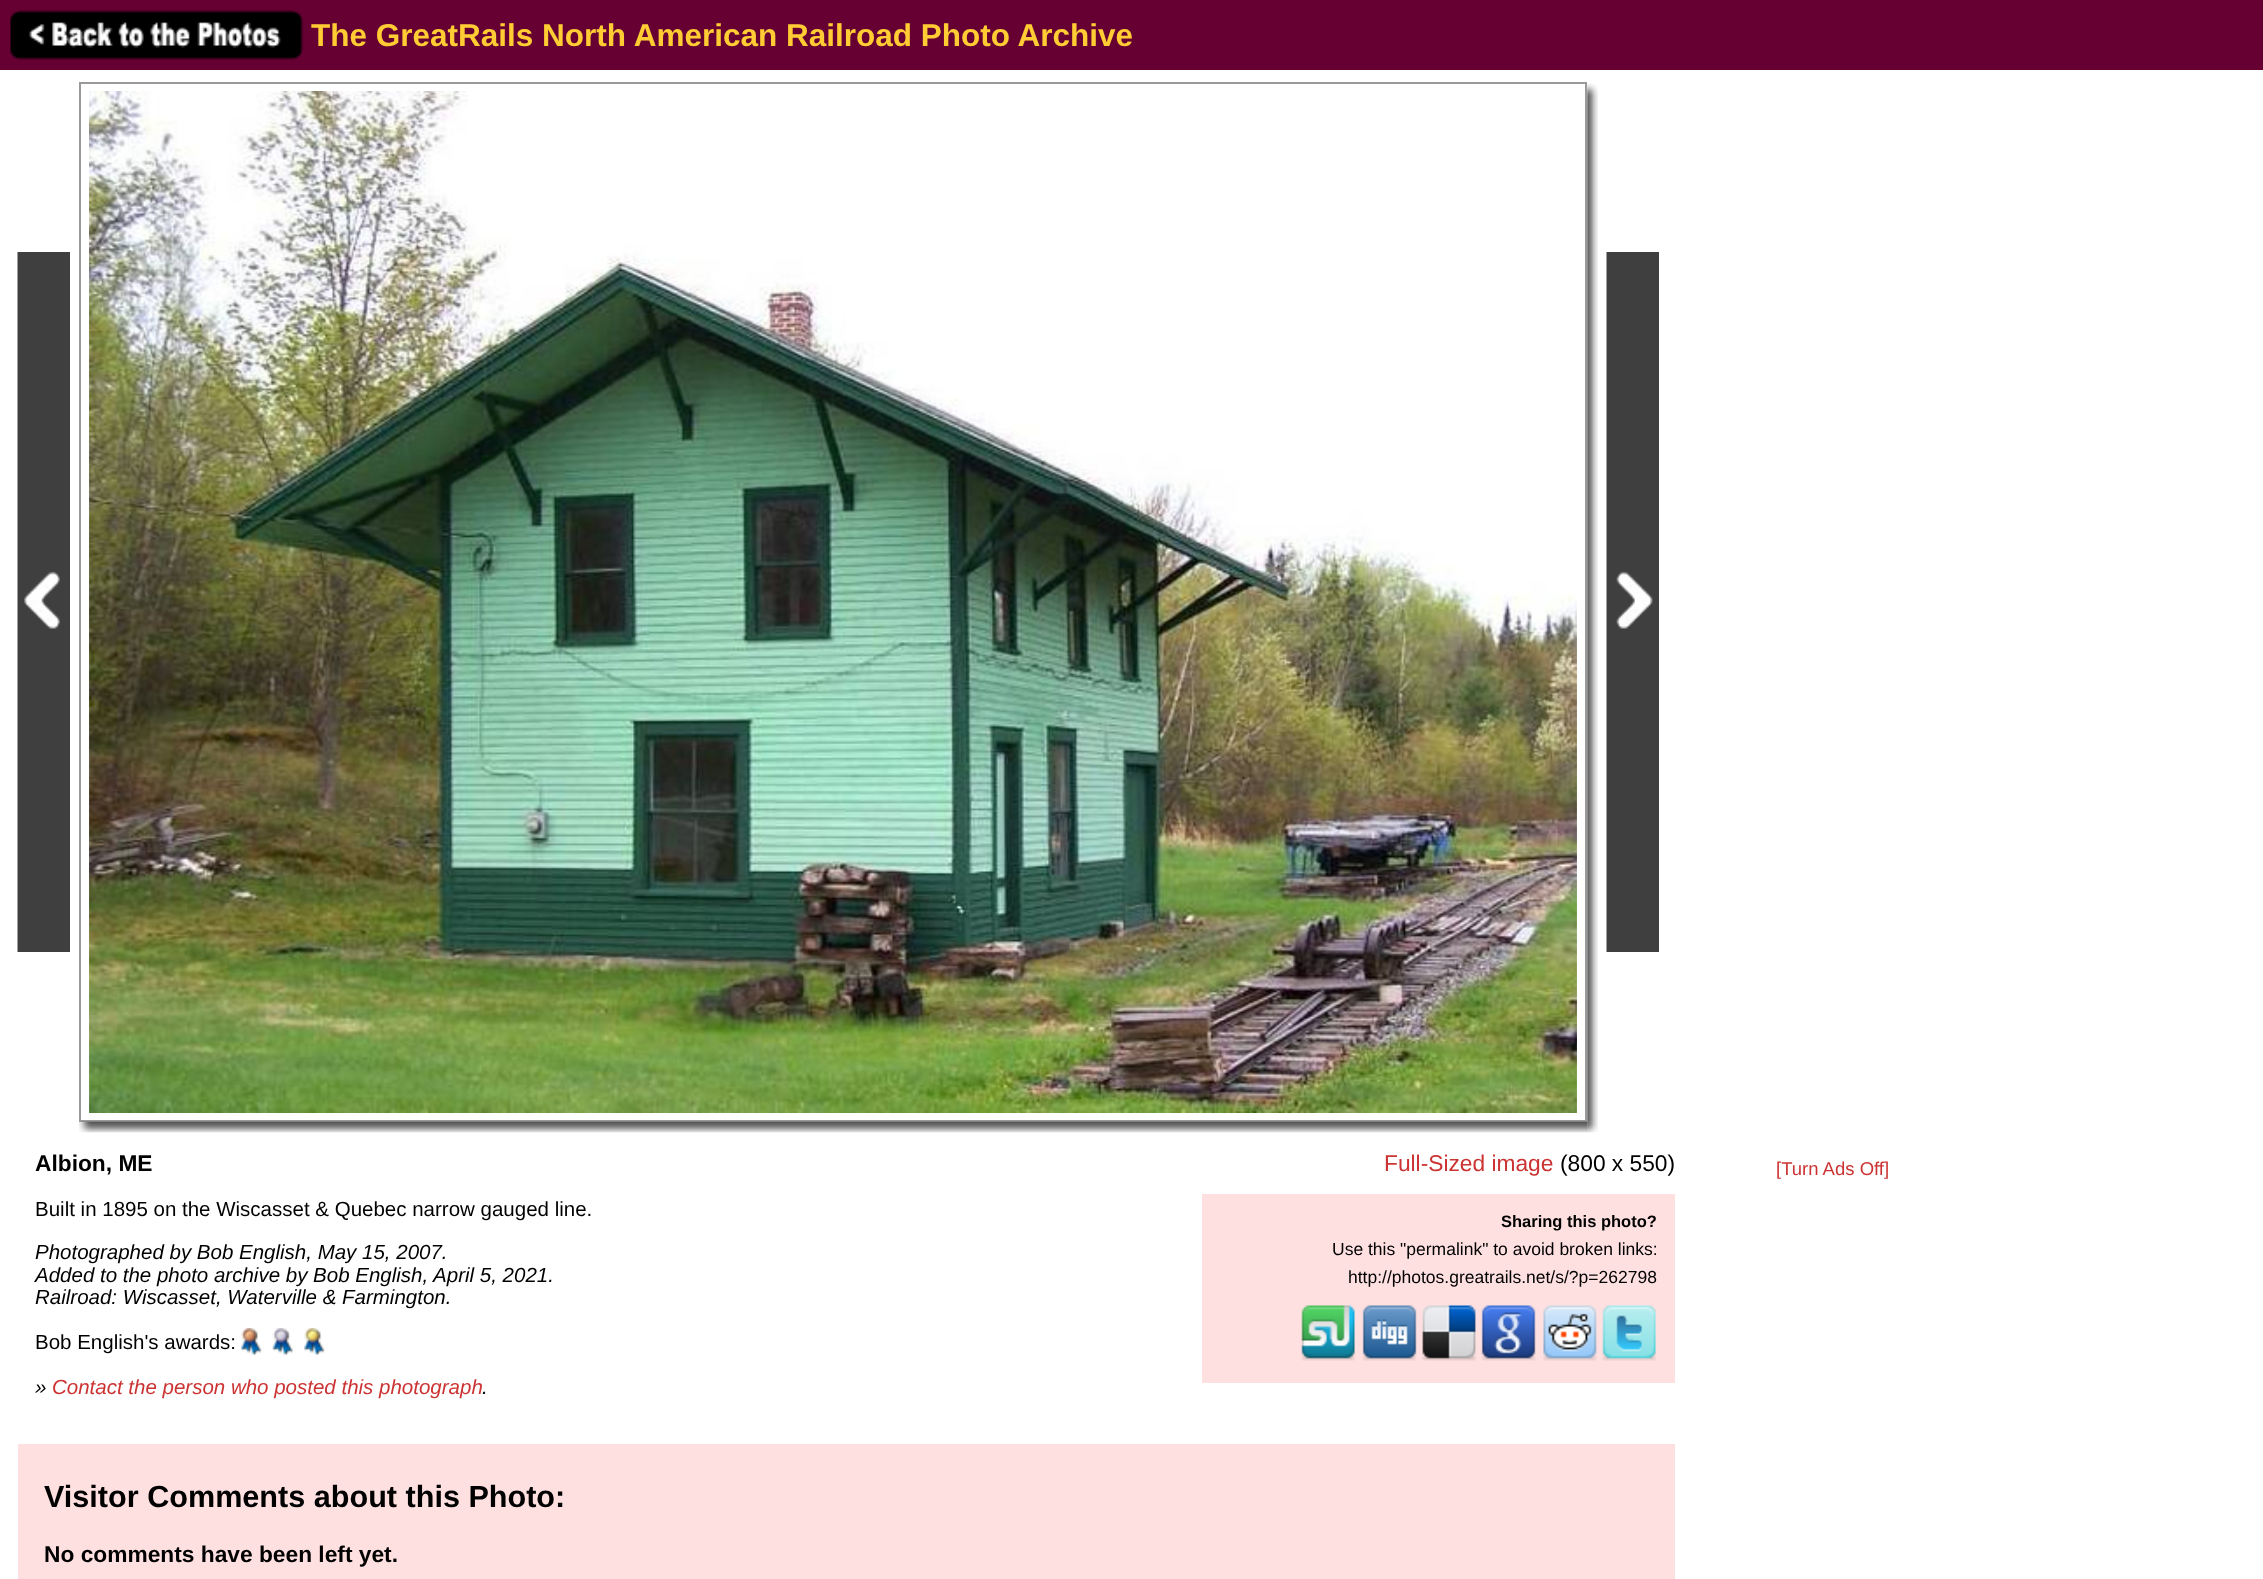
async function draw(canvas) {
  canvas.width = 2263;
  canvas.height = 1579;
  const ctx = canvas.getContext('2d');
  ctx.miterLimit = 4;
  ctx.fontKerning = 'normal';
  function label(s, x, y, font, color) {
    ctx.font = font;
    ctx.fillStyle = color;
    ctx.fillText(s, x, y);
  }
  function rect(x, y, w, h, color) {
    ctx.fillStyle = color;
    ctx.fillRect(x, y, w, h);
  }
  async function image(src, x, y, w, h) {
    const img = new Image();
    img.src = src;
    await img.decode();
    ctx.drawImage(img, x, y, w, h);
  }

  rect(0, 0, 2263, 1579, '#fff');
  rect(0, 0, 2263, 70, '#603');
  await image('assets/img1.png', 10, 10, 294, 50);
  label('The GreatRails North American Railroad Photo Archive', 311, 46, 'bold 31.5px Liberation Sans', '#fc3');
  await image('assets/img2.png', 17, 252, 53, 700);
  ctx.strokeStyle = '#9a9a9a';
  ctx.lineWidth = 2;
  ctx.strokeRect(80, 83, 1506, 1038);
  await image('assets/img3.png', 89, 91, 1488, 1022);
  await image('assets/img4.png', 89, 103, 1488, 1010);
  await image('assets/img5.png', 1587, 83, 11, 1039);
  await image('assets/img6.png', 1606, 252, 53, 700);
  await image('assets/img7.png', 79, 1121, 1509, 12);
  await image('assets/img8.png', 1587, 1121, 11, 12);
  label('Albion, ME', 35, 1171, 'bold 22.75px Liberation Sans', '#000');
  label('Built in 1895 on the Wiscasset & Quebec narrow gauged line.', 35, 1216, '20.5px Liberation Sans', '#000');
  label('Photographed by Bob English, May 15, 2007.', 35, 1259, 'italic 20.5px Liberation Sans', '#000');
  label('Added to the photo archive by Bob English, April 5, 2021.', 35, 1282, 'italic 20.5px Liberation Sans', '#000');
  label('Railroad: Wiscasset, Waterville & Farmington.', 35, 1304, 'italic 20.5px Liberation Sans', '#000');
  label('Bob English\'s awards:', 35, 1349, '20.5px Liberation Sans', '#000');
  await image('assets/img9.png', 241, 1328, 21, 27);
  await image('assets/img10.png', 272, 1328, 21, 27);
  await image('assets/img11.png', 304, 1328, 21, 27);
  label('»', 35, 1394, 'italic 20.5px Liberation Sans', '#000');
  label('Contact the person who posted this photograph', 52, 1394, 'italic 20.5px Liberation Sans', '#c33');
  label('.', 482, 1394, 'italic 20.5px Liberation Sans', '#000');
  label('Full-Sized image', 1384, 1171, '22.75px Liberation Sans', '#c33');
  label('(800 x 550)', 1560, 1171, '22.75px Liberation Sans', '#000');
  rect(1202, 1194, 473, 189, '#ffe0e0');
  label('Sharing this photo?', 1501, 1227, 'bold 16.5px Liberation Sans', '#000');
  label('Use this "permalink" to avoid broken links:', 1332, 1255, '17.5px Liberation Sans', '#000');
  label('http://photos.greatrails.net/s/?p=262798', 1348, 1283, '17.5px Liberation Sans', '#000');
  await image('assets/img12.png', 1301, 1305, 54, 56);
  await image('assets/img13.png', 1362, 1305, 55, 56);
  await image('assets/img14.png', 1421, 1305, 56, 56);
  await image('assets/img15.png', 1481, 1305, 55, 56);
  await image('assets/img16.png', 1543, 1305, 54, 56);
  await image('assets/img17.png', 1602, 1305, 54, 56);
  label('[Turn Ads Off]', 1776, 1175, '18.5px Liberation Sans', '#c33');
  rect(18, 1444, 1657, 135, '#ffe0e0');
  label('Visitor Comments about this Photo:', 44, 1507, 'bold 30.6px Liberation Sans', '#000');
  label('No comments have been left yet.', 44, 1562, 'bold 22.75px Liberation Sans', '#000');
}

draw(document.querySelector('canvas'));
